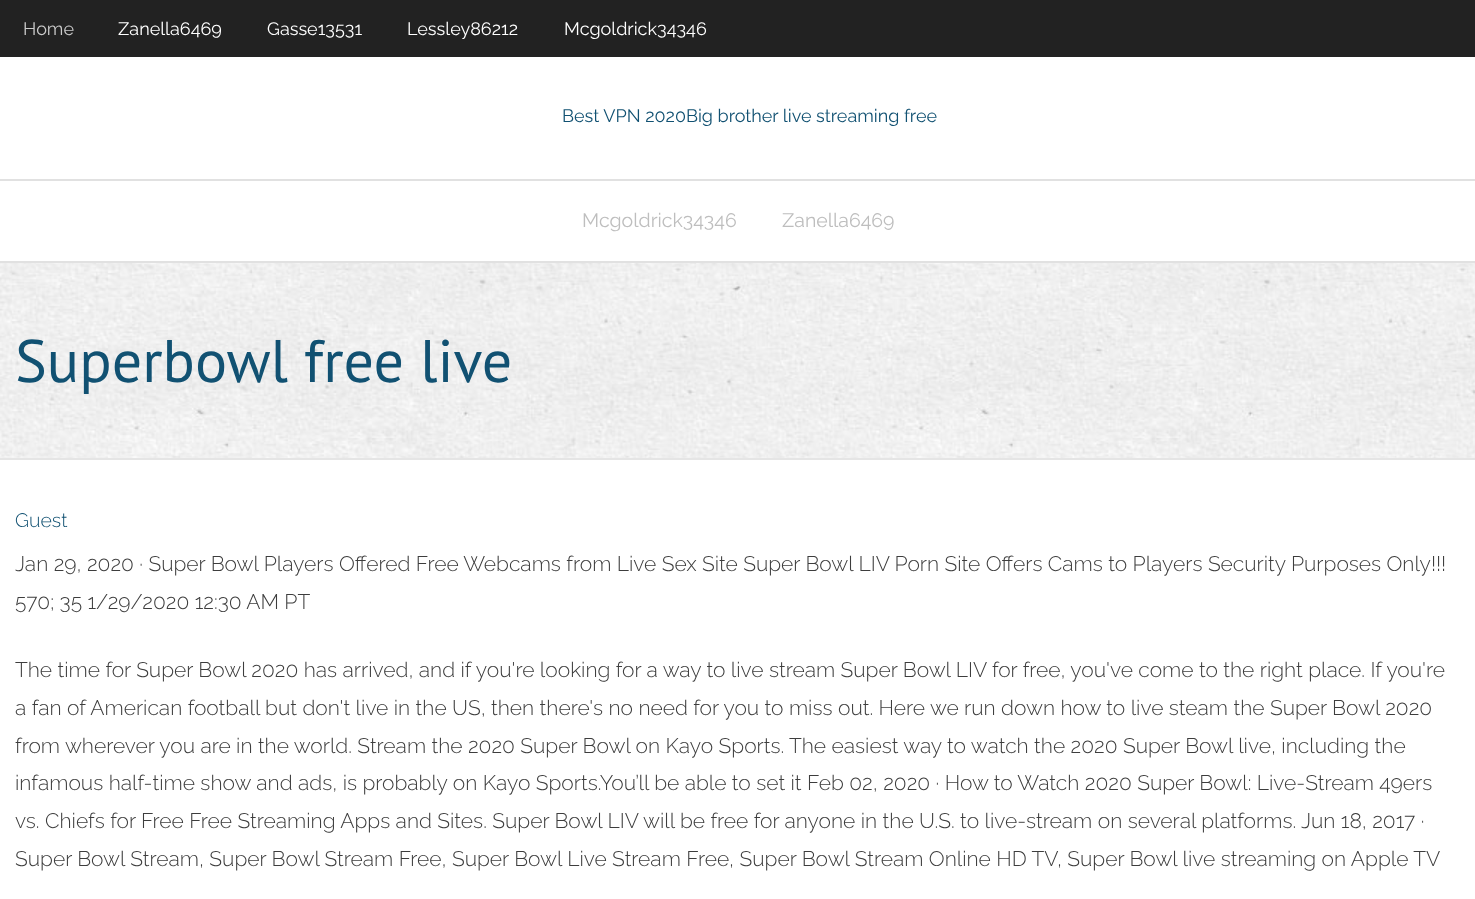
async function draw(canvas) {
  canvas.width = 1475;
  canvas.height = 899;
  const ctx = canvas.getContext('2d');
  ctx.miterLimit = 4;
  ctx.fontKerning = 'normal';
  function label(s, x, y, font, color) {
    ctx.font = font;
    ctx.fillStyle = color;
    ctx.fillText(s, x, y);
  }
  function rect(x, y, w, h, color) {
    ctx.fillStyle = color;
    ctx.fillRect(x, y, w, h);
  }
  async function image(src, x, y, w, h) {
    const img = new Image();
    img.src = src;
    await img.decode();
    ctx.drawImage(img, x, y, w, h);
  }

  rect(0, 0, 1475, 899, '#fff');
  rect(0, 0, 1475, 57, '#222');
  label('Home', 23, 35, '18px Raleway', '#ccc');
  label('Zanella6469', 118, 35, '18px Raleway', '#fff');
  label('Gasse13531', 267, 35, '18px Raleway', '#fff');
  label('Lessley86212', 407, 35, '18px Raleway', '#fff');
  label('Mcgoldrick34346', 564, 35, '18px Raleway', '#fff');
  label('Best VPN 2020Big brother live streaming free', 562, 122, '18px Raleway', '#115172');
  rect(0, 179, 1475, 2, '#e1e1e1');
  rect(0, 261, 1475, 2, '#e1e1e1');
  label('Mcgoldrick34346', 582, 227, '19.5px Raleway', '#bebebe');
  label('Zanella6469', 782, 227, '19.5px Raleway', '#bebebe');
  await image('assets/img1.png', 0, 263, 1475, 195);
  rect(0, 458, 1475, 2, '#e5e5e5');
  label('Superbowl free live', 15, 382, '60px PT Sans', '#115172');
  label('Guest', 15, 527, '300 19.5px Raleway', '#115172');
  label('Jan 29, 2020 · Super Bowl Players Offered Free Webcams from Live Sex Site Super Bowl LIV Porn Site Offers Cams to Players Security Purposes Only!!!', 15, 571, '300 21px Raleway', '#3d3d3d');
  label('570; 35 1/29/2020 12:30 AM PT', 15, 609, '300 21px Raleway', '#3d3d3d');
  label('The time for Super Bowl 2020 has arrived, and if you\'re looking for a way to live stream Super Bowl LIV for free, you\'ve come to the right place. If you\'re', 15, 677, '300 21px Raleway', '#3d3d3d');
  label('a fan of American football but don\'t live in the US, then there\'s no need for you to miss out. Here we run down how to live steam the Super Bowl 2020', 15, 715, '300 21px Raleway', '#3d3d3d');
  label('from wherever you are in the world. Stream the 2020 Super Bowl on Kayo Sports. The easiest way to watch the 2020 Super Bowl live, including the', 15, 753, '300 21px Raleway', '#3d3d3d');
  label('infamous half-time show and ads, is probably on Kayo Sports.You’ll be able to set it Feb 02, 2020 · How to Watch 2020 Super Bowl: Live-Stream 49ers', 15, 790, '300 21px Raleway', '#3d3d3d');
  label('vs. Chiefs for Free Free Streaming Apps and Sites. Super Bowl LIV will be free for anyone in the U.S. to live-stream on several platforms. Jun 18, 2017 ·', 15, 828, '300 21px Raleway', '#3d3d3d');
  label('Super Bowl Stream, Super Bowl Stream Free, Super Bowl Live Stream Free, Super Bowl Stream Online HD TV, Super Bowl live streaming on Apple TV', 15, 866, '300 21px Raleway', '#3d3d3d');
}

draw(document.querySelector('canvas'));
